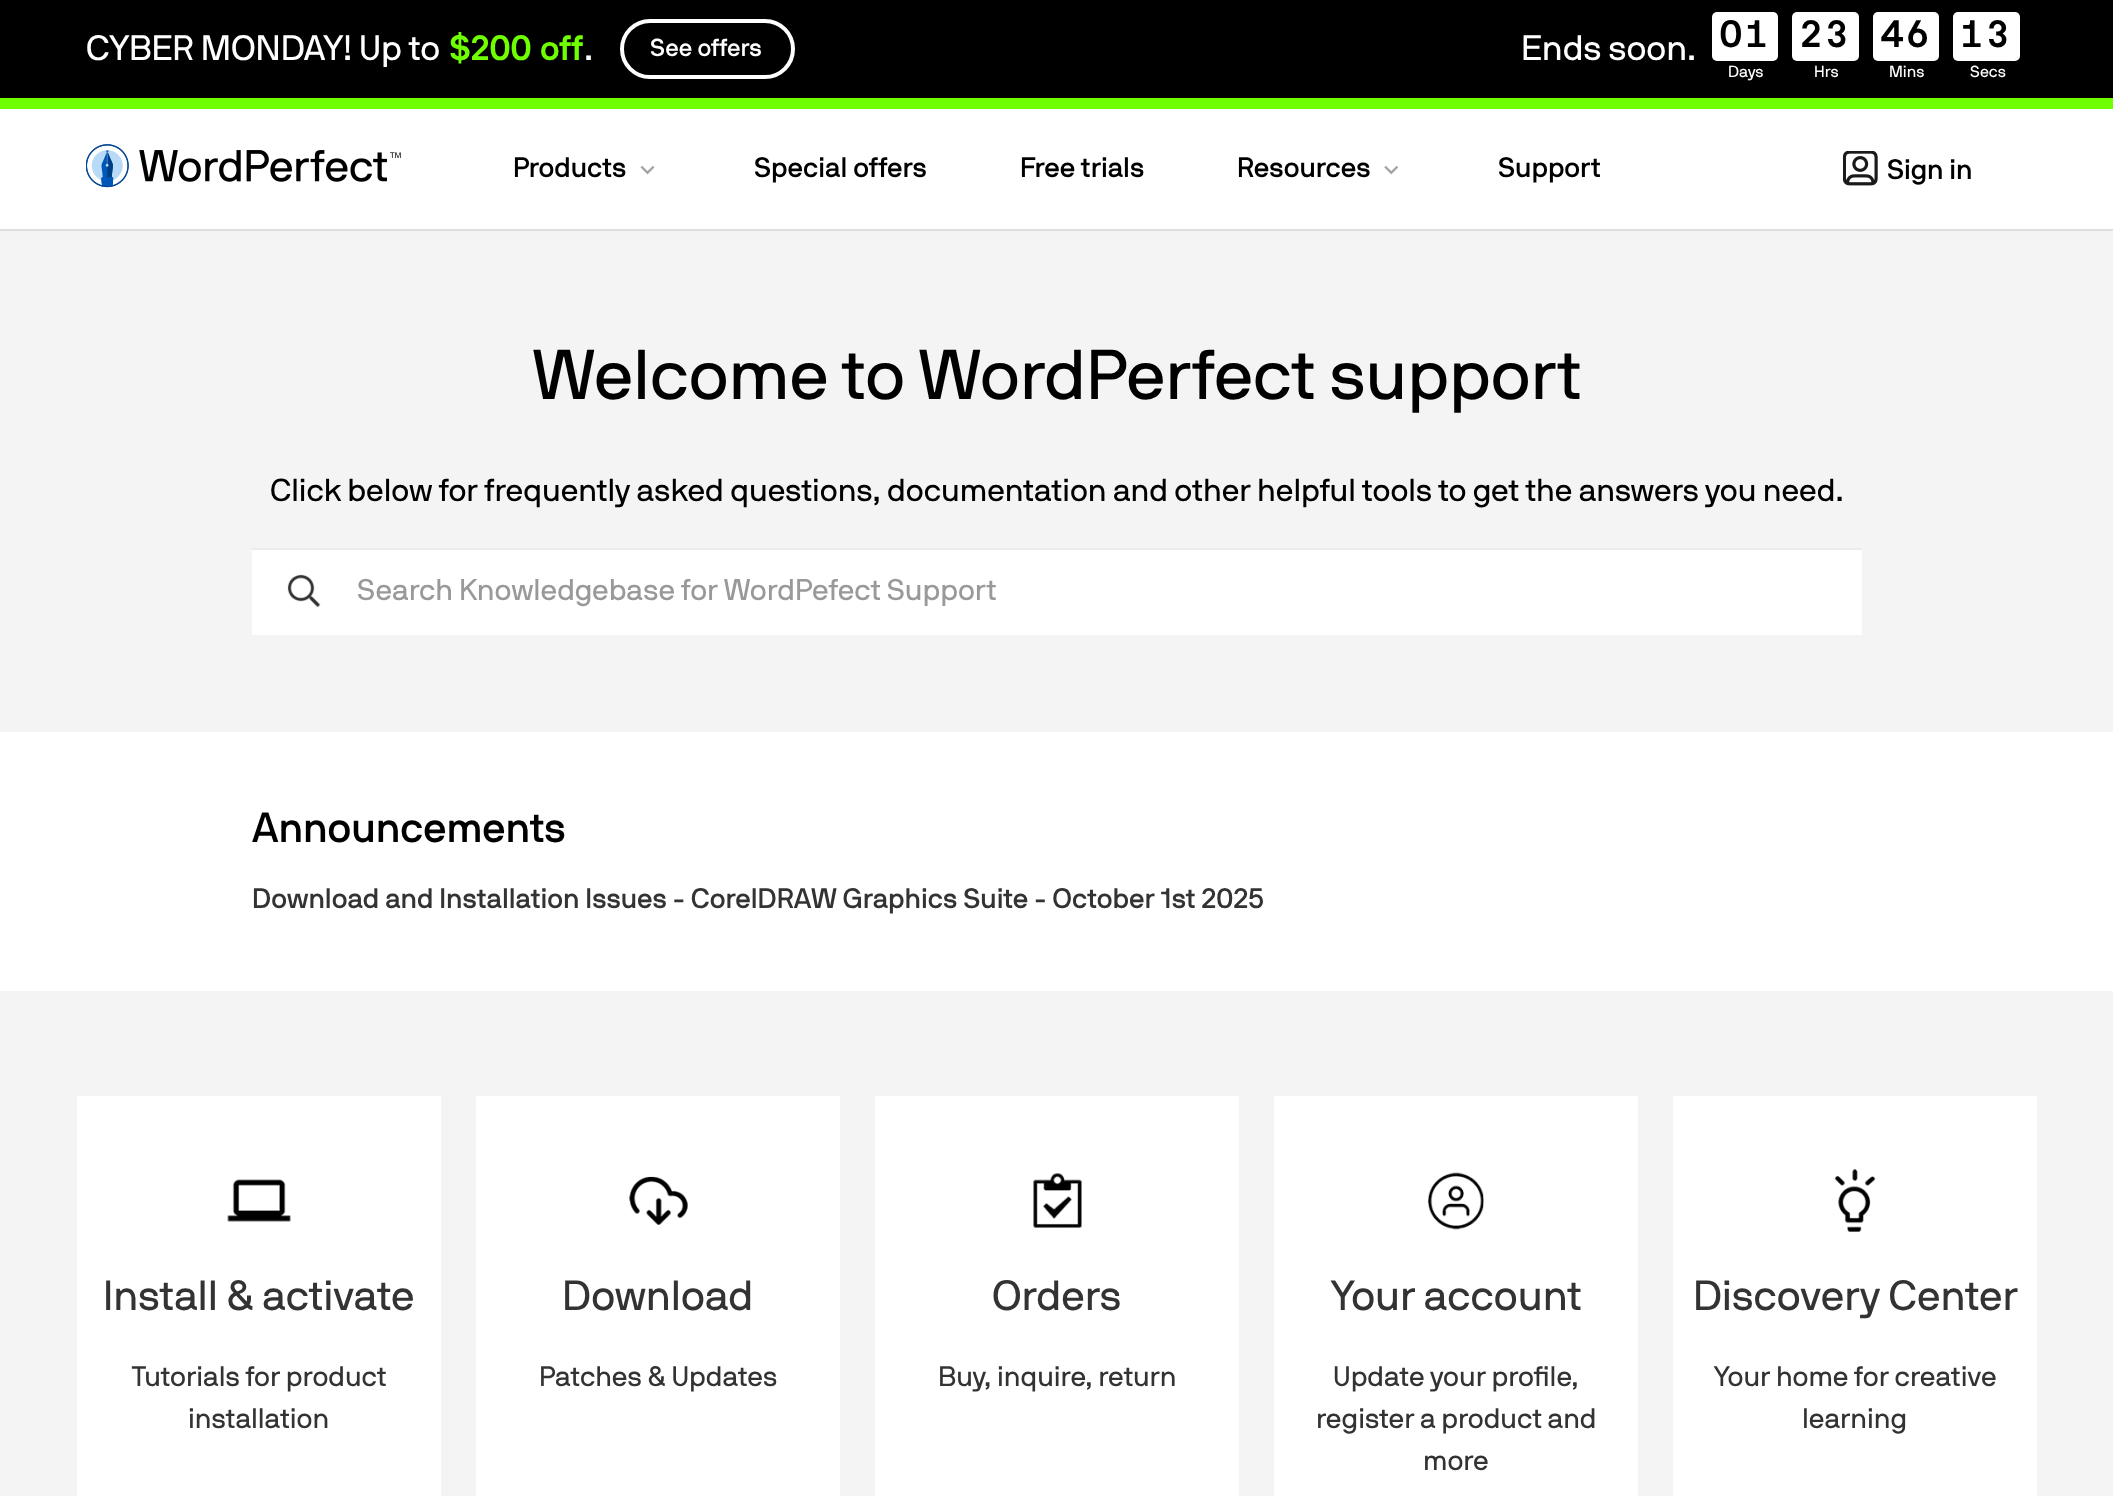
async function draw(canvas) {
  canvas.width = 2113;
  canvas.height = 1496;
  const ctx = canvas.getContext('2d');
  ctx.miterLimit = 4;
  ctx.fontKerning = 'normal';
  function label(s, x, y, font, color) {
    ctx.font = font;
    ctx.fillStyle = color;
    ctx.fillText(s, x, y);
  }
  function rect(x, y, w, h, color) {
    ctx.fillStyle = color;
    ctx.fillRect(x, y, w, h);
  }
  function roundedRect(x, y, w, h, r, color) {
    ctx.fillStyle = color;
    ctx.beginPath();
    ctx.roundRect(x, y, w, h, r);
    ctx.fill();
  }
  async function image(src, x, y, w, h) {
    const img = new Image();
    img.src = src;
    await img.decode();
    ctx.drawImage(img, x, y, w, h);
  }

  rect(0, 0, 2113, 1496, '#fff');
  rect(0, 98, 2113, 11, '#70ff00');
  rect(0, 0, 2113, 98, '#000');
  label('CYBER MONDAY! Up to', 86, 60, '35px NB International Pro', '#fff');
  label('$200 off', 449, 60, 'bold 35px NB International Pro', '#70ff00');
  ctx.beginPath();
  ctx.roundRect(622, 21, 171, 56, 28);
  ctx.strokeStyle = '#fff';
  ctx.lineWidth = 4;
  ctx.stroke();
  label('See offers', 650, 56, '500 24.5px NB International Pro', '#fff');
  label('.', 584, 60, '35px NB International Pro', '#fff');
  label('Ends soon.', 1521, 60, '35px NB International Pro', '#fff');
  roundedRect(1712, 12, 66, 49, 5, '#fff');
  label('01', 1718, 47, 'bold 38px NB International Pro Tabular', '#000');
  label('Days', 1728, 77, '16px NB International Pro', '#fff');
  roundedRect(1792, 12, 67, 49, 5, '#fff');
  label('23', 1798, 47, 'bold 38px NB International Pro Tabular', '#000');
  label('Hrs', 1814, 77, '16px NB International Pro', '#fff');
  roundedRect(1873, 12, 66, 49, 5, '#fff');
  label('46', 1879, 47, 'bold 38px NB International Pro Tabular', '#000');
  label('Mins', 1889, 77, '16px NB International Pro', '#fff');
  roundedRect(1953, 12, 67, 49, 5, '#fff');
  label('13', 1959, 47, 'bold 38px NB International Pro Tabular', '#000');
  label('Secs', 1970, 77, '16px NB International Pro', '#fff');
  rect(0, 229, 2113, 2, '#dedede');
  await image('assets/img1.png', 86, 144, 315, 44);
  label('Products', 513, 177, '500 28px NB International Pro', '#000');
  await image('assets/img2.png', 640, 165, 15, 10);
  label('Special offers', 754, 177, '500 28px NB International Pro', '#000');
  label('Free trials', 1020, 177, '500 28px NB International Pro', '#000');
  label('Resources', 1237, 177, '500 28px NB International Pro', '#000');
  await image('assets/img3.png', 1384, 165, 15, 10);
  label('Support', 1498, 177, '500 28px NB International Pro', '#000');
  await image('assets/img4.png', 1843, 151, 35, 35);
  label('Sign in', 1887, 179, '500 28px NB International Pro', '#000');
  rect(0, 231, 2113, 501, '#f4f4f4');
  label('Welcome to WordPerfect support', 533, 399, '70px NB International Pro', '#000');
  label('Click below for frequently asked questions, documentation and other helpful tools to get the answers you need.', 270, 501, '31.5px NB International Pro', '#000');
  rect(252, 550, 1610, 85, '#fff');
  await image('assets/img5.png', 287, 574, 34, 34);
  rect(252, 548, 1610, 2, '#ececec');
  label('Search Knowledgebase for WordPefect Support', 357, 600, '29.75px NB International Pro', '#999');
  label('Announcements', 252, 842, '500 42px NB International Pro', '#000');
  label('Download and Installation Issues - CorelDRAW Graphics Suite - October 1st 2025', 252, 908, '500 28px NB International Pro', '#333');
  rect(0, 991, 2113, 505, '#f4f4f4');
  rect(77, 1096, 364, 400, '#fff');
  await image('assets/img6.png', 227, 1179, 64, 43);
  label('Install & activate', 103, 1310, '42px NB International Pro', '#333');
  label('Tutorials for product', 132, 1386, '28px NB International Pro', '#333');
  label('installation', 188, 1428, '28px NB International Pro', '#333');
  rect(476, 1096, 364, 400, '#fff');
  await image('assets/img7.png', 629, 1176, 59, 49);
  label('Download', 562, 1310, '42px NB International Pro', '#333');
  label('Patches & Updates', 539, 1386, '28px NB International Pro', '#333');
  rect(875, 1096, 364, 400, '#fff');
  await image('assets/img8.png', 1033, 1173, 49, 55);
  label('Orders', 992, 1310, '42px NB International Pro', '#333');
  label('Buy, inquire, return', 938, 1386, '28px NB International Pro', '#333');
  rect(1274, 1096, 364, 400, '#fff');
  await image('assets/img9.png', 1428, 1172, 56, 58);
  label('Your account', 1331, 1310, '42px NB International Pro', '#333');
  label('Update your profile,', 1333, 1386, '28px NB International Pro', '#333');
  label('register a product and', 1316, 1428, '28px NB International Pro', '#333');
  label('more', 1423, 1470, '28px NB International Pro', '#333');
  rect(1673, 1096, 364, 400, '#fff');
  await image('assets/img10.png', 1834, 1169, 42, 63);
  label('Discovery Center', 1693, 1310, '42px NB International Pro', '#333');
  label('Your home for creative', 1714, 1386, '28px NB International Pro', '#333');
  label('learning', 1802, 1428, '28px NB International Pro', '#333');
}

draw(document.querySelector('canvas'));
